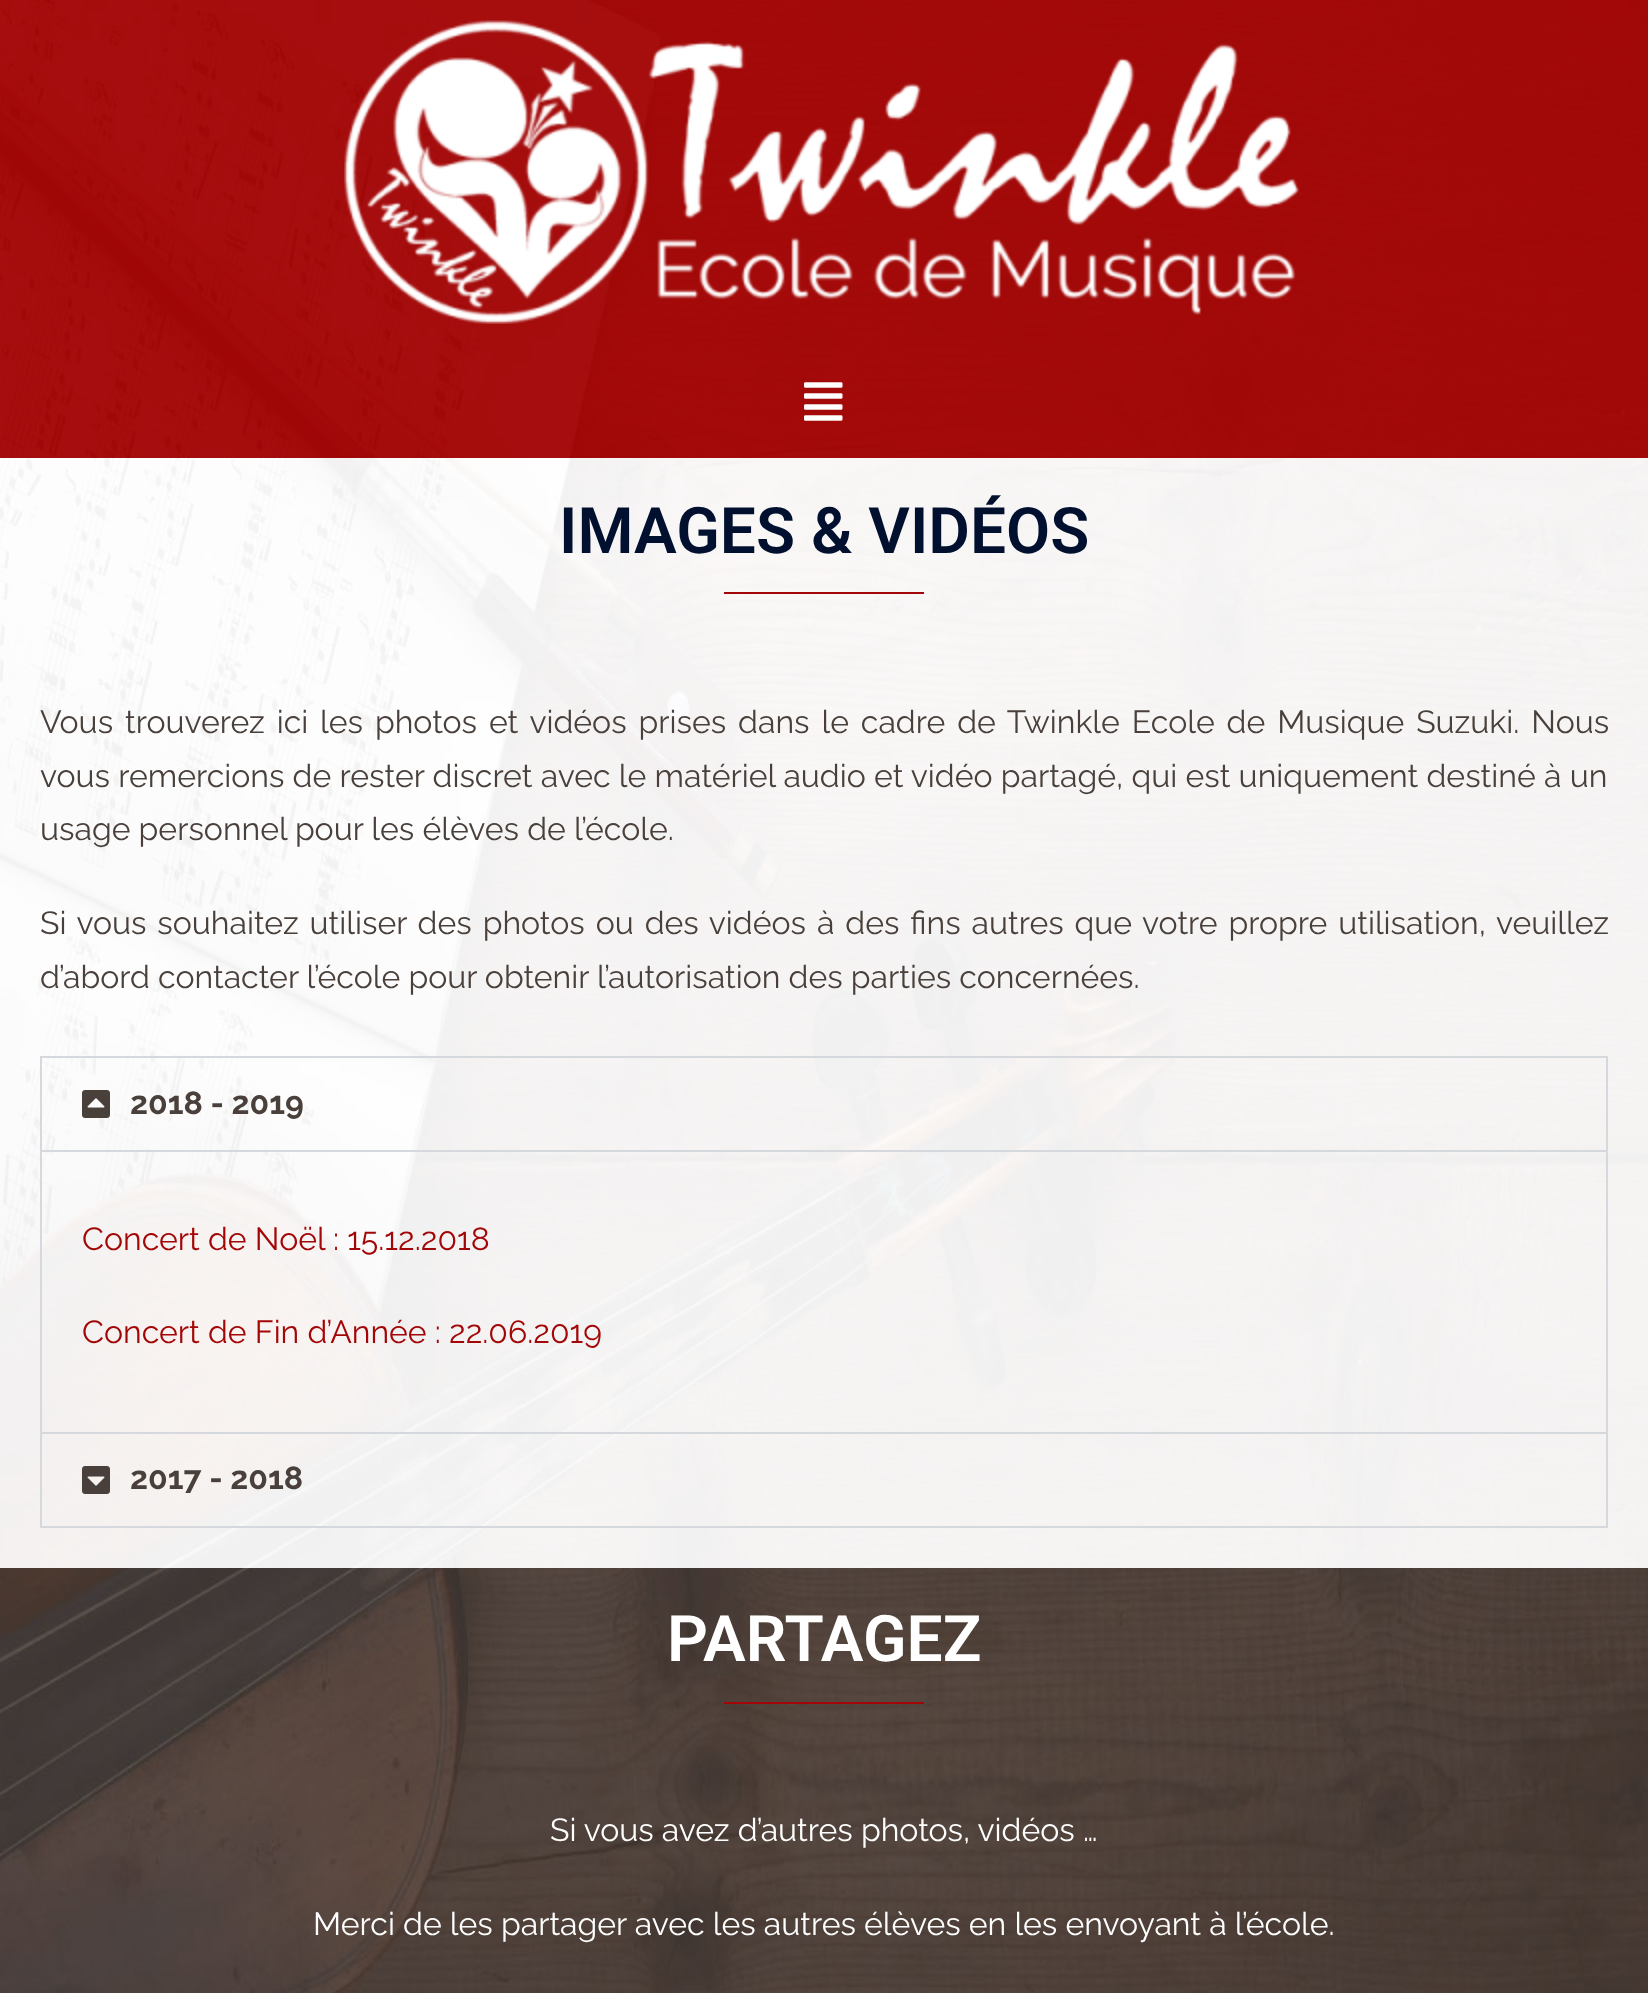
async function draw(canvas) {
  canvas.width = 1648;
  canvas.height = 1993;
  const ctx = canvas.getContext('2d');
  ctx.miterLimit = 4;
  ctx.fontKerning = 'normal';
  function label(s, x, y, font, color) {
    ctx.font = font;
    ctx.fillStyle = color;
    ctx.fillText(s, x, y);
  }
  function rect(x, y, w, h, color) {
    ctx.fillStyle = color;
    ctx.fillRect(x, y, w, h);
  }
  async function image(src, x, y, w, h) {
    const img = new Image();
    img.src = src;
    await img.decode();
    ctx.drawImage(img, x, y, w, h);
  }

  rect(0, 0, 1648, 1993, '#fff');
  await image('assets/img1.png', 0, 0, 1648, 1993);
  rect(0, 0, 1648, 458, '#a30606f7');
  await image('assets/img2.png', 344, 20, 955, 304);
  await image('assets/img3.png', 804, 382, 39, 39);
  rect(0, 458, 1648, 1110, '#fffffff0');
  label('IMAGES & VIDÉOS', 559, 553, '600 64px Roboto', '#00102e');
  rect(724, 592, 200, 2, '#a30606');
  ctx.wordSpacing = '3.75px';
  label('Vous trouverez ici les photos et vidéos prises dans le cadre de Twinkle Ecole de Musique Suzuki. Nous', 40, 733, '32px Raleway', '#49403b');
  ctx.wordSpacing = '0.1px';
  label('vous remercions de rester discret avec le matériel audio et vidéo partagé, qui est uniquement destiné à un', 40, 787, '32px Raleway', '#49403b');
  ctx.wordSpacing = '0px';
  label('usage personnel pour les élèves de l’école.', 40, 840, '32px Raleway', '#49403b');
  ctx.wordSpacing = '2.75px';
  label('Si vous souhaitez utiliser des photos ou des vidéos à des fins autres que votre propre utilisation, veuillez', 40, 934, '32px Raleway', '#49403b');
  ctx.wordSpacing = '0px';
  label('d’abord contacter l’école pour obtenir l’autorisation des parties concernées.', 40, 988, '32px Raleway', '#49403b');
  ctx.strokeStyle = '#d5d8dc';
  ctx.lineWidth = 2;
  ctx.strokeRect(41, 1057, 1566, 376);
  await image('assets/img4.png', 82, 1090, 28, 28);
  label('2018 - 2019', 130, 1114, 'bold 32px Raleway', '#49403b');
  rect(42, 1150, 1564, 2, '#d5d8dc');
  label('Concert de Noël : 15.12.2018', 82, 1250, '32px Raleway', '#a30606');
  label('Concert de Fin d’Année : 22.06.2019', 82, 1343, '32px Raleway', '#a30606');
  rect(1606, 1434, 2, 94, '#d5d8dc');
  rect(40, 1526, 1568, 2, '#d5d8dc');
  rect(40, 1434, 2, 94, '#d5d8dc');
  await image('assets/img5.png', 82, 1466, 28, 28);
  label('2017 - 2018', 130, 1489, 'bold 32px Raleway', '#49403b');
  rect(0, 1568, 1648, 425, '#49403bc7');
  label('PARTAGEZ', 667, 1661, '600 64px Roboto', '#fff');
  rect(724, 1702, 200, 2, '#a30606');
  label('Si vous avez d’autres photos, vidéos …', 550, 1841, '32px Raleway', '#fff');
  label('Merci de les partager avec les autres élèves en les envoyant à l’école.', 313, 1935, '32px Raleway', '#fff');
}

draw(document.querySelector('canvas'));
